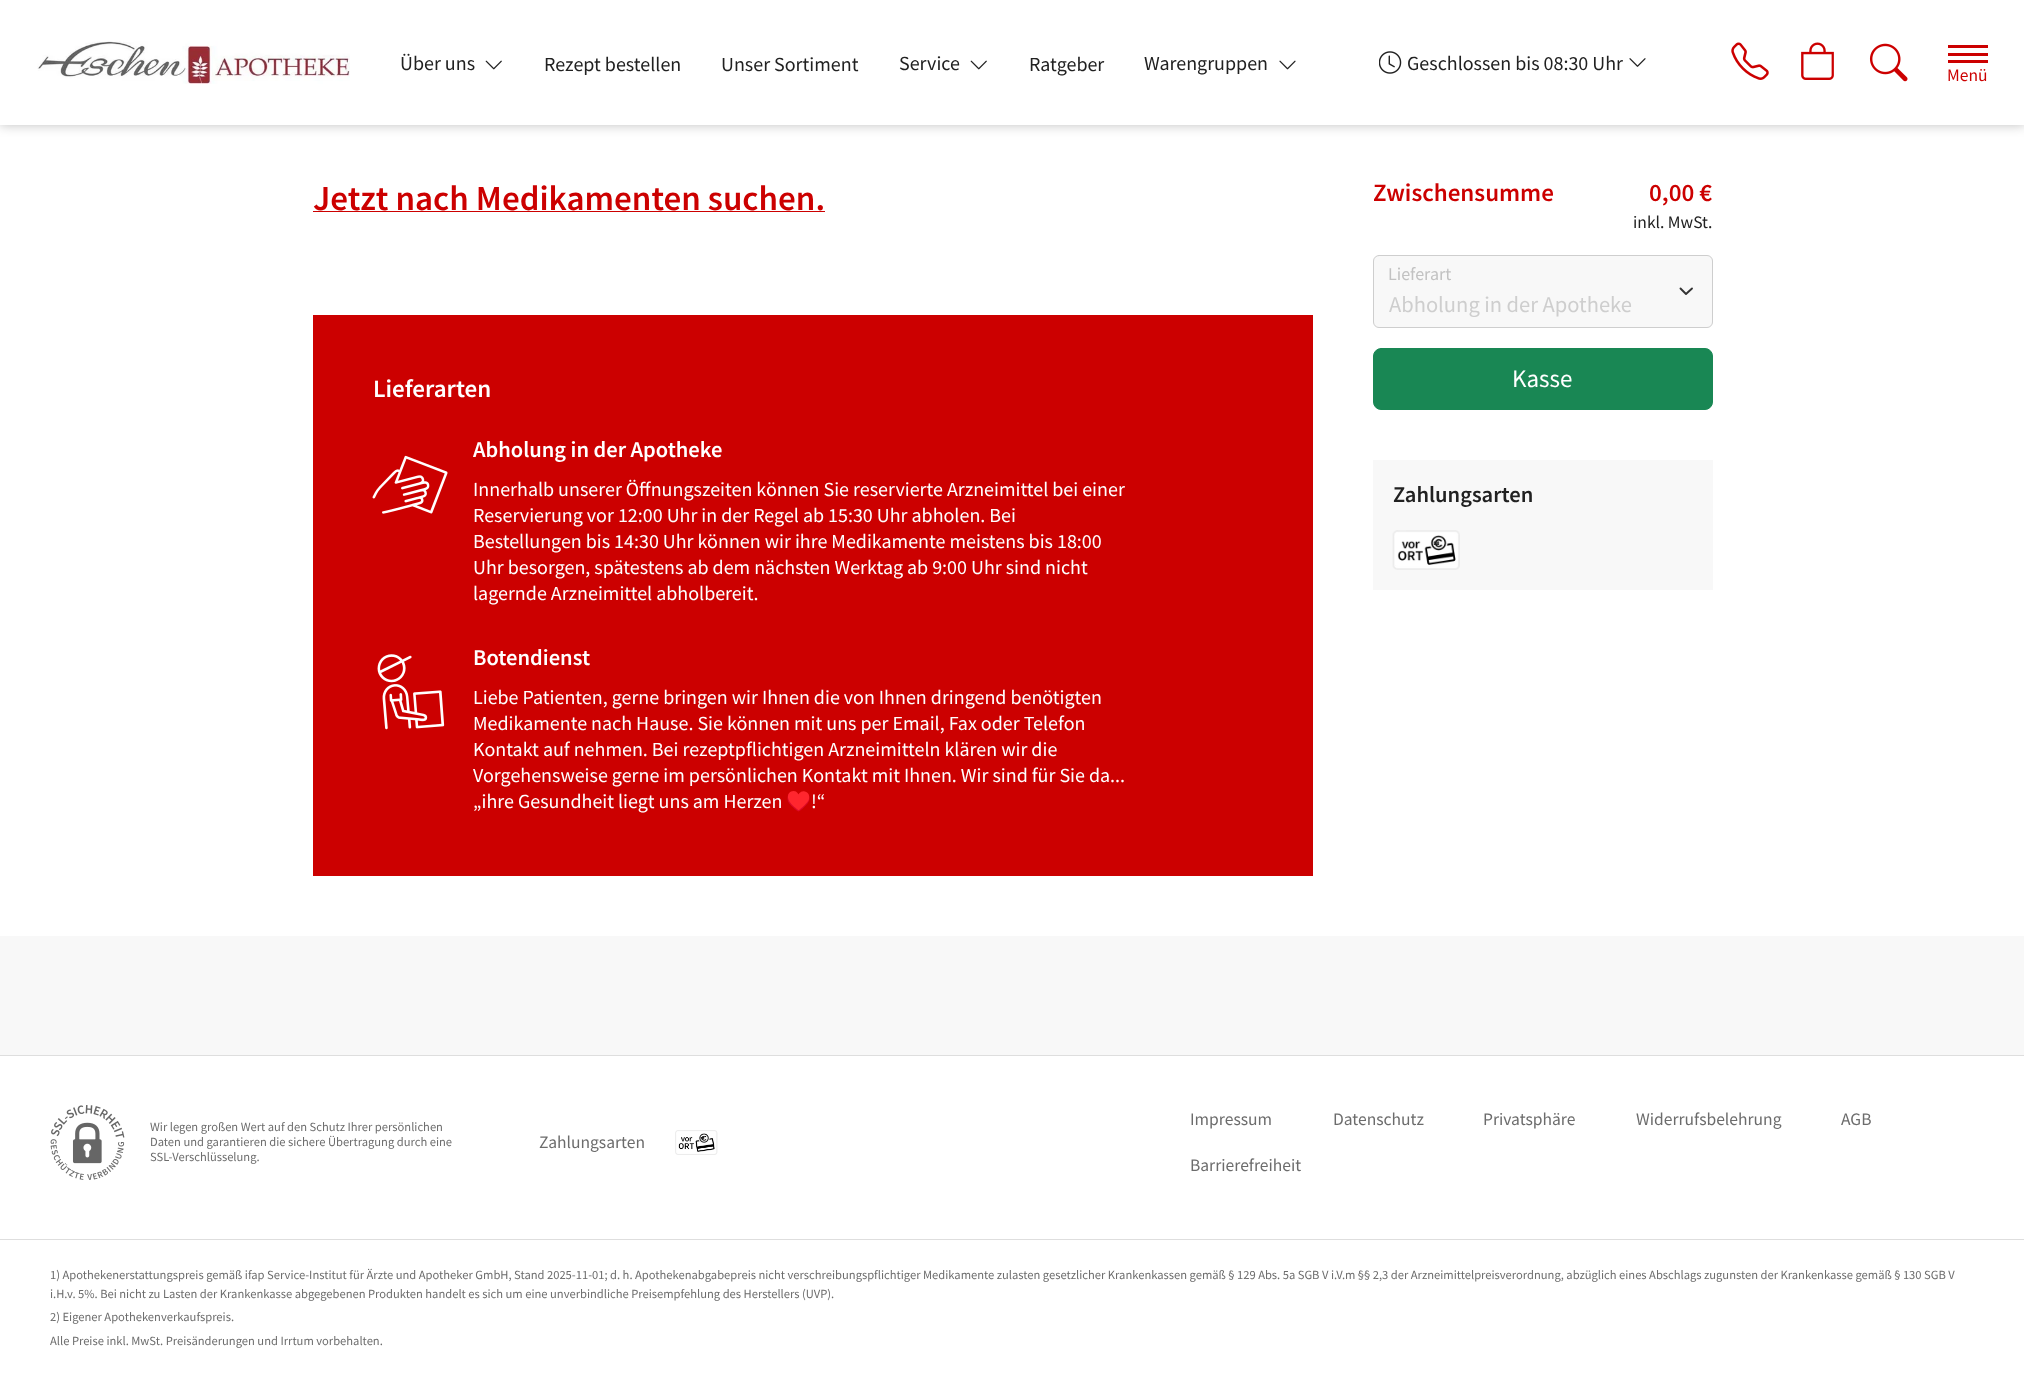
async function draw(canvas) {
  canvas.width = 2024;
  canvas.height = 1394;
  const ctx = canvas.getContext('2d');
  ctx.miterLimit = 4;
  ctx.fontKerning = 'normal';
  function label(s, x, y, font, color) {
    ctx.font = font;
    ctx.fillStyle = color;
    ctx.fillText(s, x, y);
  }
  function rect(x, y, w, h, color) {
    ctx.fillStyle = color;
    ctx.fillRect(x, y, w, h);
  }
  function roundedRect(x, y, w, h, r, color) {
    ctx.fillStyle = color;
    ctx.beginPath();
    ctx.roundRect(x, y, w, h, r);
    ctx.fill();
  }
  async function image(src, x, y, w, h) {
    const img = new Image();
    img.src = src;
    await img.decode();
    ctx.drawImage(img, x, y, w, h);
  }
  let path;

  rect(0, 0, 2024, 1394, '#f8f8f8');
  rect(0, 125, 2024, 811, '#fff');
  ctx.fillStyle = '#00000040';
  ctx.filter = 'blur(6px)';
  ctx.beginPath();
  ctx.rect(0, 0, 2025, 125);
  ctx.fill();
  ctx.filter = 'none';
  rect(0, 0, 2024, 125, '#fff');
  await image('assets/img1.png', 37, 41, 313, 43);
  label('Über uns', 400, 70, '20px Source Sans Pro', '#212121');
  await image('assets/img2.png', 485, 60, 17, 10);
  label('Rezept bestellen', 544, 71, '20px Source Sans Pro', '#212121');
  label('Unser Sortiment', 721, 71, '20px Source Sans Pro', '#212121');
  label('Service', 899, 70, '20px Source Sans Pro', '#212121');
  await image('assets/img2.png', 970, 60, 17, 10);
  label('Ratgeber', 1029, 71, '20px Source Sans Pro', '#212121');
  label('Warengruppen', 1144, 70, '20px Source Sans Pro', '#212121');
  await image('assets/img3.png', 1279, 60, 17, 10);
  await image('assets/img4.png', 1379, 51, 23, 23);
  label('Geschlossen bis 08:30 Uhr', 1407, 70, '20px Source Sans Pro', '#212121');
  await image('assets/img5.png', 1629, 58, 17, 9);
  await image('assets/img6.png', 1731, 42, 38, 38);
  await image('assets/img7.png', 1801, 42, 33, 38);
  await image('assets/img8.png', 1869, 43, 39, 39);
  rect(1948, 53, 40, 3, '#c00');
  rect(1948, 45, 40, 3, '#c00');
  rect(1948, 60, 40, 3, '#c00');
  label('Menü', 1947, 81, '17.5px Source Sans Pro', '#c00');
  label('Jetzt nach Medikamenten suchen.', 313, 210, '600 35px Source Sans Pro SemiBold', '#c00');
  rect(313, 211, 512, 1, '#c00');
  rect(313, 315, 1000, 561, '#c00');
  label('Lieferarten', 373, 397, '600 25px Source Sans Pro SemiBold', '#fff');
  await image('assets/img9.png', 372, 455, 76, 59);
  label('Abholung in der Apotheke', 473, 457, '600 22.5px Source Sans Pro SemiBold', '#fff');
  label('Innerhalb unserer Öffnungszeiten können Sie reservierte Arzneimittel bei einer', 473, 496, '20px Source Sans Pro', '#fff');
  label('Reservierung vor 12:00 Uhr in der Regel ab 15:30 Uhr abholen. Bei', 473, 522, '20px Source Sans Pro', '#fff');
  label('Bestellungen bis 14:30 Uhr können wir ihre Medikamente meistens bis 18:00', 473, 548, '20px Source Sans Pro', '#fff');
  label('Uhr besorgen, spätestens ab dem nächsten Werktag ab 9:00 Uhr sind nicht', 473, 574, '20px Source Sans Pro', '#fff');
  label('lagernde Arzneimittel abholbereit.', 473, 600, '20px Source Sans Pro', '#fff');
  await image('assets/img10.png', 377, 654, 68, 76);
  label('Botendienst', 473, 665, '600 22.5px Source Sans Pro SemiBold', '#fff');
  label('Liebe Patienten, gerne bringen wir Ihnen die von Ihnen dringend benötigten', 473, 704, '20px Source Sans Pro', '#fff');
  label('Medikamente nach Hause. Sie können mit uns per Email, Fax oder Telefon', 473, 730, '20px Source Sans Pro', '#fff');
  label('Kontakt auf nehmen. Bei rezeptpflichtigen Arzneimitteln klären wir die', 473, 756, '20px Source Sans Pro', '#fff');
  label('Vorgehensweise gerne im persönlichen Kontakt mit Ihnen. Wir sind für Sie da...', 473, 782, '20px Source Sans Pro', '#fff');
  label('„ihre Gesundheit liegt uns am Herzen', 473, 808, '20px Source Sans Pro', '#fff');
  label('♥️', 786, 808, '20px Noto Color Emoji', '#fff');
  label('!“', 811, 808, '20px Source Sans Pro', '#fff');
  label('Zwischensumme', 1373, 201, '600 25px Source Sans Pro SemiBold', '#c00');
  label('0,00 €', 1649, 201, '600 25px Source Sans Pro SemiBold', '#c00');
  label('inkl. MwSt.', 1633, 228, '17.5px Source Sans Pro', '#212121');
  roundedRect(1373, 255, 340, 73, 6, '#f8f8f8');
  path = new Path2D('M1680.5 288.5L1686 294L1692 288.5');
  ctx.strokeStyle = '#343434';
  ctx.lineWidth = 1.9;
  ctx.lineCap = 'round';
  ctx.lineJoin = 'round';
  ctx.stroke(path);
  ctx.beginPath();
  ctx.roundRect(1373.5, 255.5, 339, 72, 5.5);
  ctx.strokeStyle = '#cecece';
  ctx.lineWidth = 1;
  ctx.lineJoin = 'miter';
  ctx.stroke();
  label('Lieferart', 1388, 280, '18px Source Sans Pro', '#c2c2c2');
  label('Abholung in der Apotheke', 1389, 312, '22.5px Source Sans Pro', '#cecece');
  ctx.fillStyle = '#198754';
  ctx.beginPath();
  ctx.roundRect(1373.5, 348.5, 339, 61, 7.5);
  ctx.fill();
  ctx.strokeStyle = '#198754';
  ctx.stroke();
  label('Kasse', 1512, 387, '25px Source Sans Pro', '#fff');
  rect(1373, 460, 340, 130, '#f8f8f8');
  label('Zahlungsarten', 1393, 502, '600 22.5px Source Sans Pro SemiBold', '#212121');
  await image('assets/img11.png', 1392, 530, 68, 40);
  rect(0, 1056, 2024, 338, '#fff');
  rect(0, 1055, 2024, 1, '#dedede');
  await image('assets/img12.png', 50, 1105, 75, 75);
  label('Wir legen großen Wert auf den Schutz Ihrer persönlichen', 150, 1131, '12.5px Source Sans Pro', '#6c6c6c');
  label('Daten und garantieren die sichere Übertragung durch eine', 150, 1146, '12.5px Source Sans Pro', '#6c6c6c');
  label('SSL-Verschlüsselung.', 150, 1161, '12.5px Source Sans Pro', '#6c6c6c');
  label('Zahlungsarten', 539, 1148, '17.5px Source Sans Pro', '#6c6c6c');
  await image('assets/img13.png', 675, 1130, 43, 25);
  label('Impressum', 1190, 1125, '17.5px Source Sans Pro', '#6c6c6c');
  label('Datenschutz', 1333, 1125, '17.5px Source Sans Pro', '#6c6c6c');
  label('Privatsphäre', 1483, 1125, '17.5px Source Sans Pro', '#6c6c6c');
  label('Widerrufsbelehrung', 1636, 1125, '17.5px Source Sans Pro', '#6c6c6c');
  label('AGB', 1841, 1125, '17.5px Source Sans Pro', '#6c6c6c');
  label('Barrierefreiheit', 1190, 1171, '17.5px Source Sans Pro', '#6c6c6c');
  rect(0, 1239, 2024, 1, '#dedede');
  label('1) Apothekenerstattungspreis gemäß ifap Service-Institut für Ärzte und Apotheker GmbH, Stand 2025-11-01; d. h. Apothekenabgabepreis nicht verschreibungspflichtiger Medikamente zulasten gesetzlicher Krankenkassen gemäß § 129 Abs. 5a SGB V i.V.m §§ 2,3 der Arzneimittelpreisverordnung, abzüglich eines Abschlags zugunsten der Krankenkasse gemäß § 130 SGB V', 50, 1279, '12.5px Source Sans Pro', '#6c6c6c');
  label('i.H.v. 5%. Bei nicht zu Lasten der Krankenkasse abgegebenen Produkten handelt es sich um eine unverbindliche Preisempfehlung des Herstellers (UVP).', 50, 1298, '12.5px Source Sans Pro', '#6c6c6c');
  label('2) Eigener Apothekenverkaufspreis.', 50, 1321, '12.5px Source Sans Pro', '#6c6c6c');
  label('Alle Preise inkl. MwSt. Preisänderungen und Irrtum vorbehalten.', 50, 1345, '12.5px Source Sans Pro', '#6c6c6c');
}

draw(document.querySelector('canvas'));
